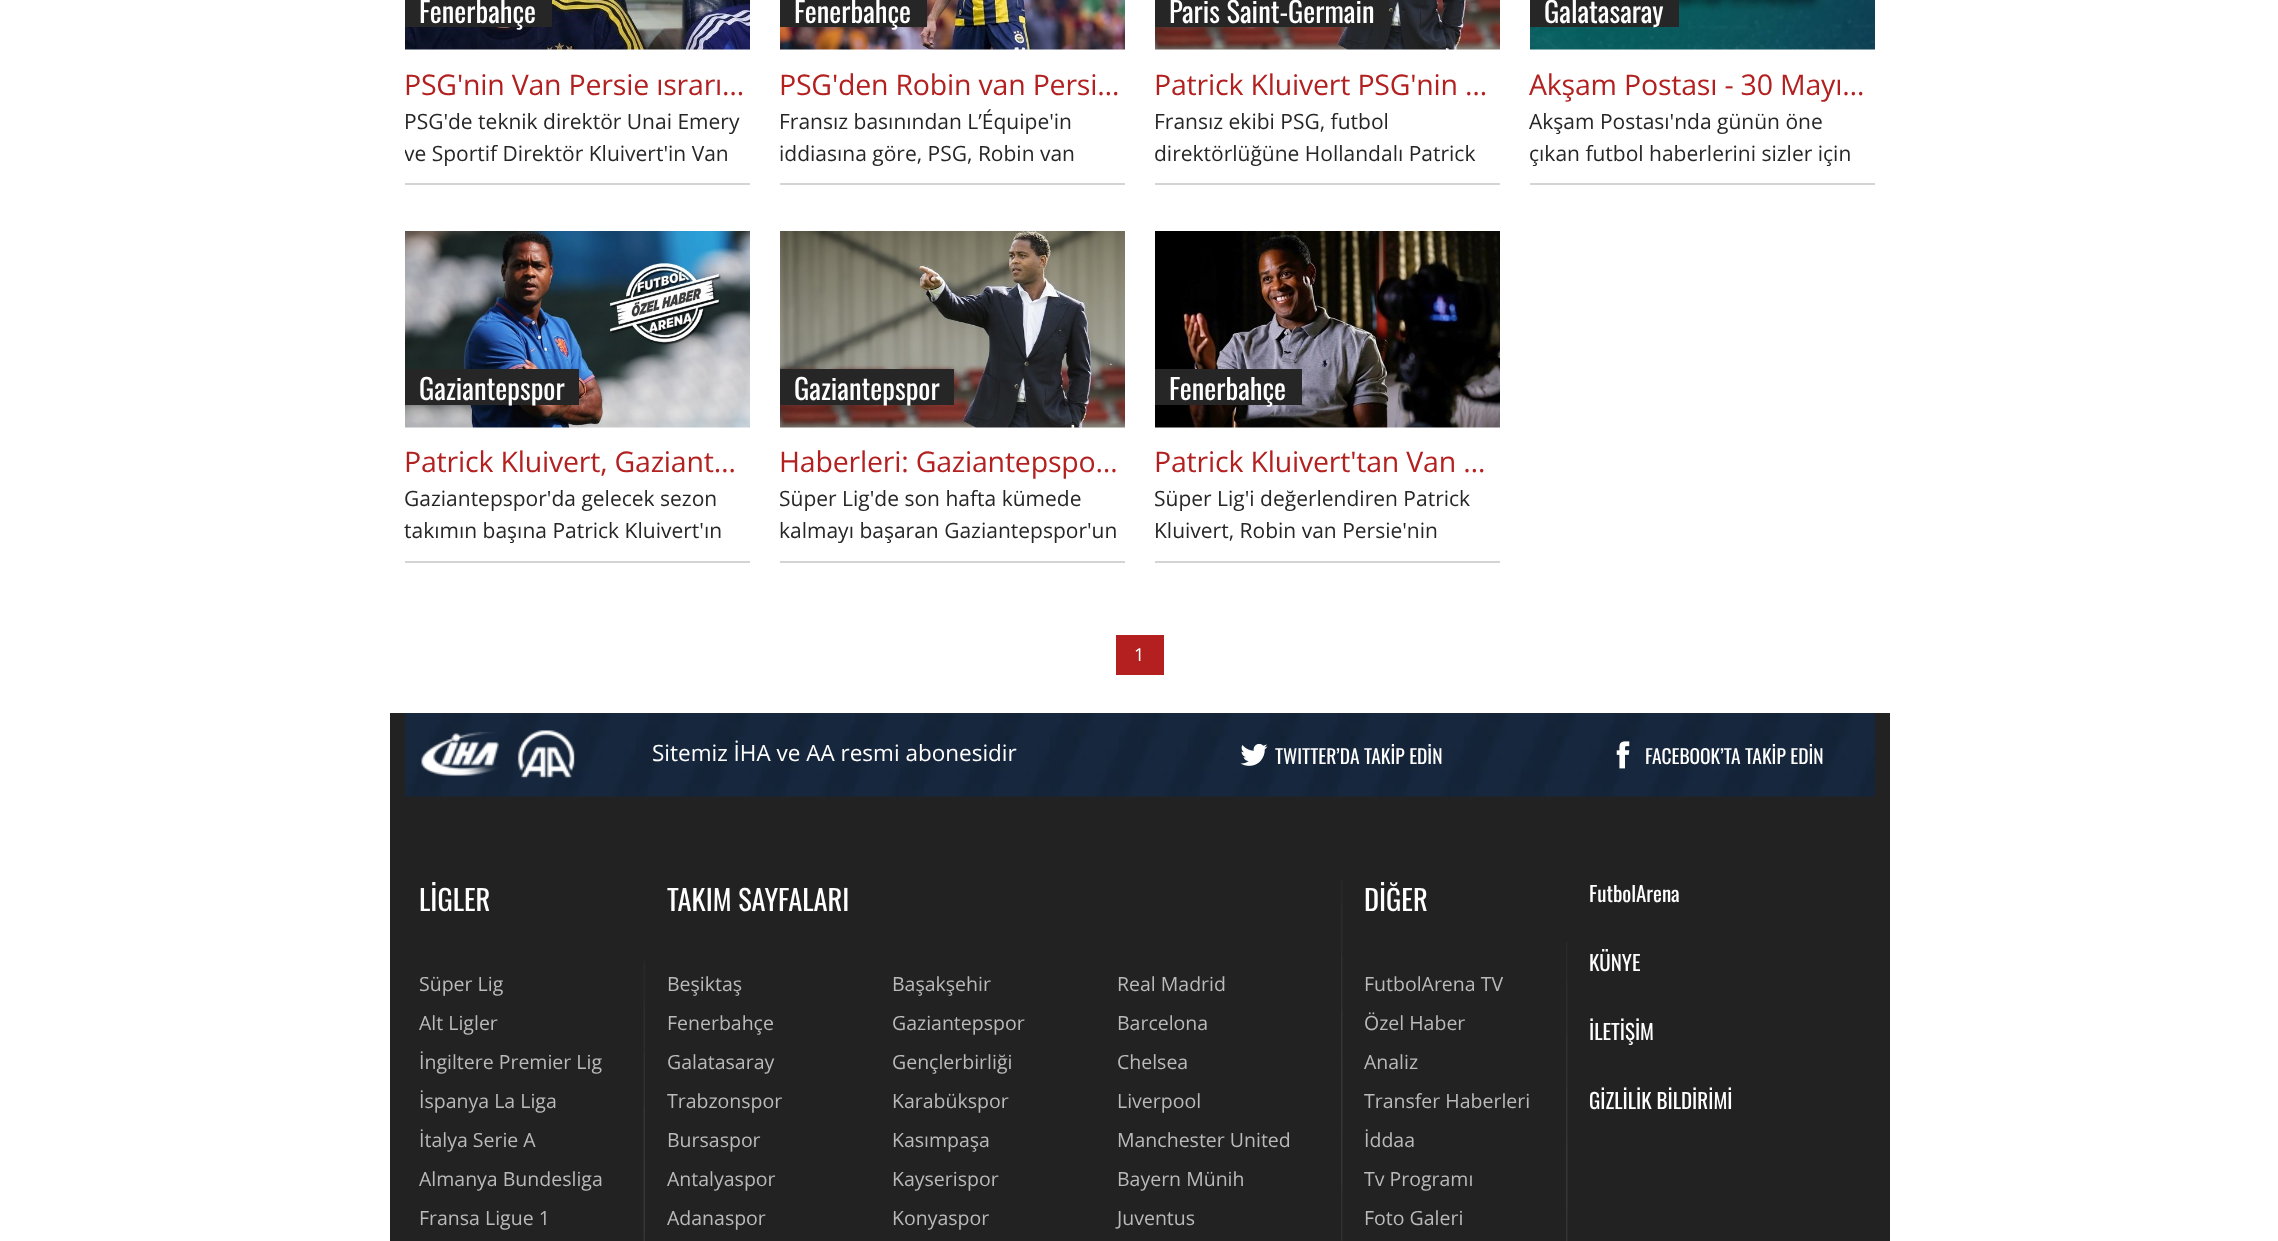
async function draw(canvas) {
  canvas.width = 2278;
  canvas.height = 1241;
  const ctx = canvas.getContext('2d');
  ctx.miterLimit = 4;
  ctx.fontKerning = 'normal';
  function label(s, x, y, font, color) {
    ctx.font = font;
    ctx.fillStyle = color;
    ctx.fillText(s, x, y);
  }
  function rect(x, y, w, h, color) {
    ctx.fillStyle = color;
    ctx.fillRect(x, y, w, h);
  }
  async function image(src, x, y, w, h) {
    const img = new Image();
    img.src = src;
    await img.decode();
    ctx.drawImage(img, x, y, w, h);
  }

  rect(0, 0, 2278, 1241, '#fff');
  rect(405, 183, 345, 2, '#d4d4d4');
  await image('assets/img1.png', 405, 0, 345, 50);
  rect(405, 0, 147, 27, '#262626');
  label('Fenerbahçe', 419, 23, '28.5px Oswald', '#fff');
  ctx.letterSpacing = '-0.2px';
  label('PSG\'nin Van Persie ısrarı…', 404, 95, '28.5px Open Sans', '#b32020');
  ctx.letterSpacing = '0px';
  label('PSG\'de teknik direktör Unai Emery', 404, 129, '21px Open Sans', '#262626');
  ctx.save();
  ctx.beginPath();
  ctx.rect(405, 105, 345, 63);
  ctx.clip();
  label('ve Sportif Direktör Kluivert\'in Van', 404, 161, '21px Open Sans', '#262626');
  ctx.restore();
  rect(780, 183, 345, 2, '#d4d4d4');
  await image('assets/img2.png', 780, 0, 345, 50);
  rect(780, 0, 147, 27, '#262626');
  label('Fenerbahçe', 794, 23, '28.5px Oswald', '#fff');
  ctx.letterSpacing = '-0.2px';
  label('PSG\'den Robin van Persi…', 779, 95, '28.5px Open Sans', '#b32020');
  ctx.letterSpacing = '0px';
  label('Fransız basınından L’Équipe\'in', 779, 129, '21px Open Sans', '#262626');
  label('iddiasına göre, PSG, Robin van', 779, 161, '21px Open Sans', '#262626');
  rect(1155, 183, 345, 2, '#d4d4d4');
  await image('assets/img3.png', 1155, 0, 345, 50);
  rect(1155, 0, 234, 27, '#262626');
  label('Paris Saint-Germain', 1169, 23, '28.5px Oswald', '#fff');
  ctx.letterSpacing = '-0.2px';
  label('Patrick Kluivert PSG\'nin …', 1154, 95, '28.5px Open Sans', '#b32020');
  ctx.letterSpacing = '0px';
  label('Fransız ekibi PSG, futbol', 1154, 129, '21px Open Sans', '#262626');
  label('direktörlüğüne Hollandalı Patrick', 1154, 161, '21px Open Sans', '#262626');
  rect(1530, 183, 345, 2, '#d4d4d4');
  await image('assets/img4.png', 1530, 0, 345, 50);
  rect(1530, 0, 149, 27, '#262626');
  label('Galatasaray', 1544, 23, '28.5px Oswald', '#fff');
  ctx.letterSpacing = '-0.2px';
  label('Akşam Postası - 30 Mayı…', 1529, 95, '28.5px Open Sans', '#b32020');
  ctx.letterSpacing = '0px';
  label('Akşam Postası\'nda günün öne', 1529, 129, '21px Open Sans', '#262626');
  label('çıkan futbol haberlerini sizler için', 1529, 161, '21px Open Sans', '#262626');
  rect(405, 561, 345, 2, '#d4d4d4');
  await image('assets/img5.png', 405, 231, 345, 197);
  rect(405, 369, 174, 36, '#262626');
  label('Gaziantepspor', 419, 400, '28.5px Oswald', '#fff');
  ctx.letterSpacing = '-0.2px';
  label('Patrick Kluivert, Gaziant…', 404, 472, '28.5px Open Sans', '#b32020');
  ctx.letterSpacing = '0px';
  label('Gaziantepspor\'da gelecek sezon', 404, 506, '21px Open Sans', '#262626');
  label('takımın başına Patrick Kluivert\'ın', 404, 538, '21px Open Sans', '#262626');
  rect(780, 561, 345, 2, '#d4d4d4');
  await image('assets/img6.png', 780, 231, 345, 197);
  rect(780, 369, 174, 36, '#262626');
  label('Gaziantepspor', 794, 400, '28.5px Oswald', '#fff');
  ctx.letterSpacing = '-0.2px';
  label('Haberleri: Gaziantepspo…', 779, 472, '28.5px Open Sans', '#b32020');
  ctx.letterSpacing = '0px';
  label('Süper Lig\'de son hafta kümede', 779, 506, '21px Open Sans', '#262626');
  label('kalmayı başaran Gaziantepspor\'un', 779, 538, '21px Open Sans', '#262626');
  rect(1155, 561, 345, 2, '#d4d4d4');
  await image('assets/img7.png', 1155, 231, 345, 197);
  rect(1155, 369, 147, 36, '#262626');
  label('Fenerbahçe', 1169, 400, '28.5px Oswald', '#fff');
  ctx.letterSpacing = '-0.2px';
  label('Patrick Kluivert\'tan Van …', 1154, 472, '28.5px Open Sans', '#b32020');
  ctx.letterSpacing = '0px';
  label('Süper Lig\'i değerlendiren Patrick', 1154, 506, '21px Open Sans', '#262626');
  label('Kluivert, Robin van Persie\'nin', 1154, 538, '21px Open Sans', '#262626');
  rect(1116, 635, 48, 40, '#b42020');
  label('1', 1134, 661, '18px Open Sans', '#fff');
  rect(390, 713, 1500, 528, '#222');
  await image('assets/img8.png', 405, 713, 1470, 84);
  await image('assets/img9.png', 421, 730, 154, 48);
  label('Sitemiz İHA ve AA resmi abonesidir', 652, 761, '22.5px Open Sans', '#fff');
  await image('assets/img10.png', 1240, 743, 28, 23);
  label('TWITTER’DA TAKİP EDİN', 1275, 764, '19.5px Oswald', '#fff');
  await image('assets/img11.png', 1616, 741, 14, 28);
  label('FACEBOOK’TA TAKİP EDİN', 1645, 764, '19.5px Oswald', '#fff');
  await image('assets/img12.png', 643, 961, 2, 280);
  label('LİGLER', 419, 911, '28.5px Oswald', '#fff');
  label('Süper Lig', 419, 991, '19.5px Open Sans', '#bababa');
  label('Alt Ligler', 419, 1030, '19.5px Open Sans', '#bababa');
  label('İngiltere Premier Lig', 419, 1069, '19.5px Open Sans', '#bababa');
  label('İspanya La Liga', 419, 1108, '19.5px Open Sans', '#bababa');
  label('İtalya Serie A', 419, 1147, '19.5px Open Sans', '#bababa');
  label('Almanya Bundesliga', 419, 1186, '19.5px Open Sans', '#bababa');
  label('Fransa Ligue 1', 419, 1225, '19.5px Open Sans', '#bababa');
  await image('assets/img13.png', 1341, 879, 2, 362);
  label('TAKIM SAYFALARI', 667, 911, '28.5px Oswald', '#fff');
  label('Beşiktaş', 667, 991, '19.5px Open Sans', '#bababa');
  label('Başakşehir', 892, 991, '19.5px Open Sans', '#bababa');
  label('Real Madrid', 1117, 991, '19.5px Open Sans', '#bababa');
  label('Fenerbahçe', 667, 1030, '19.5px Open Sans', '#bababa');
  label('Gaziantepspor', 892, 1030, '19.5px Open Sans', '#bababa');
  label('Barcelona', 1117, 1030, '19.5px Open Sans', '#bababa');
  label('Galatasaray', 667, 1069, '19.5px Open Sans', '#bababa');
  label('Gençlerbirliği', 892, 1069, '19.5px Open Sans', '#bababa');
  label('Chelsea', 1117, 1069, '19.5px Open Sans', '#bababa');
  label('Trabzonspor', 667, 1108, '19.5px Open Sans', '#bababa');
  label('Karabükspor', 892, 1108, '19.5px Open Sans', '#bababa');
  label('Liverpool', 1117, 1108, '19.5px Open Sans', '#bababa');
  label('Bursaspor', 667, 1147, '19.5px Open Sans', '#bababa');
  label('Kasımpaşa', 892, 1147, '19.5px Open Sans', '#bababa');
  label('Manchester United', 1117, 1147, '19.5px Open Sans', '#bababa');
  label('Antalyaspor', 667, 1186, '19.5px Open Sans', '#bababa');
  label('Kayserispor', 892, 1186, '19.5px Open Sans', '#bababa');
  label('Bayern Münih', 1117, 1186, '19.5px Open Sans', '#bababa');
  label('Adanaspor', 667, 1225, '19.5px Open Sans', '#bababa');
  label('Konyaspor', 892, 1225, '19.5px Open Sans', '#bababa');
  label('Juventus', 1117, 1225, '19.5px Open Sans', '#bababa');
  await image('assets/img14.png', 1566, 942, 2, 299);
  label('DİĞER', 1364, 911, '28.5px Oswald', '#fff');
  label('FutbolArena TV', 1364, 991, '19.5px Open Sans', '#bababa');
  label('Özel Haber', 1364, 1030, '19.5px Open Sans', '#bababa');
  label('Analiz', 1364, 1069, '19.5px Open Sans', '#bababa');
  label('Transfer Haberleri', 1364, 1108, '19.5px Open Sans', '#bababa');
  label('İddaa', 1364, 1147, '19.5px Open Sans', '#bababa');
  label('Tv Programı', 1364, 1186, '19.5px Open Sans', '#bababa');
  label('Foto Galeri', 1364, 1225, '19.5px Open Sans', '#bababa');
  label('FutbolArena', 1589, 902, '21px Oswald', '#fff');
  label('KÜNYE', 1589, 971, '21px Oswald', '#fff');
  label('İLETİŞİM', 1589, 1040, '21px Oswald', '#fff');
  label('GİZLİLİK BİLDİRİMİ', 1589, 1109, '21px Oswald', '#fff');
}

draw(document.querySelector('canvas'));
